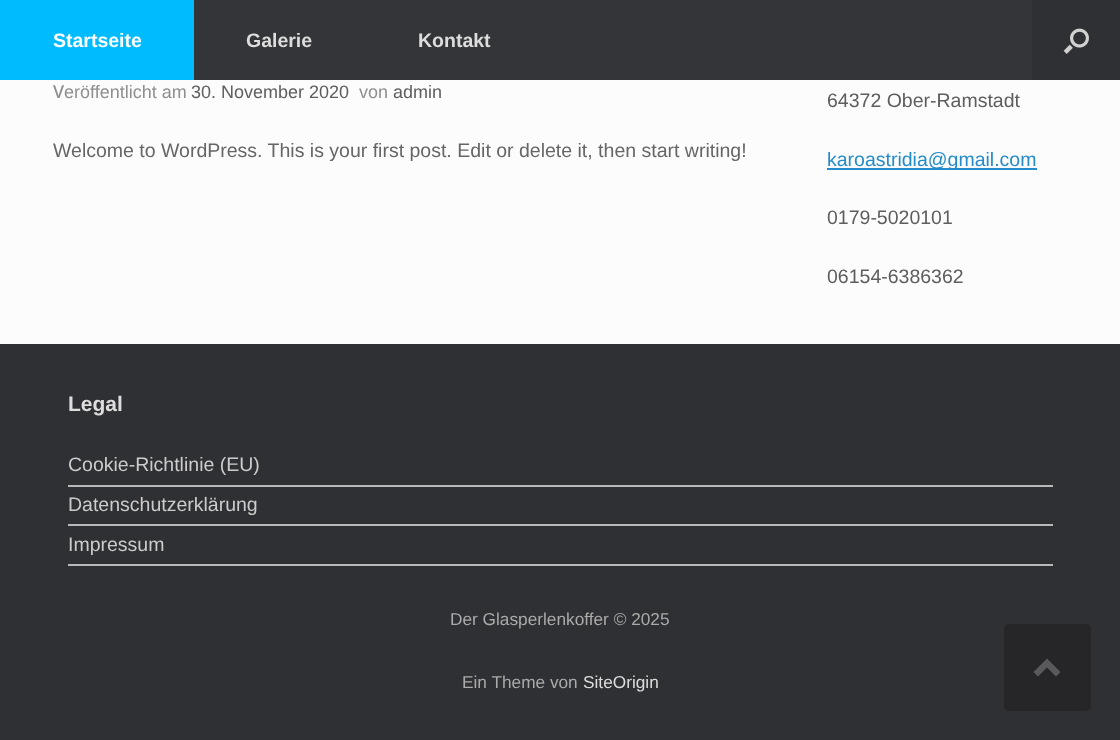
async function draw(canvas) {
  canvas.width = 1120;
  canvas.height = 740;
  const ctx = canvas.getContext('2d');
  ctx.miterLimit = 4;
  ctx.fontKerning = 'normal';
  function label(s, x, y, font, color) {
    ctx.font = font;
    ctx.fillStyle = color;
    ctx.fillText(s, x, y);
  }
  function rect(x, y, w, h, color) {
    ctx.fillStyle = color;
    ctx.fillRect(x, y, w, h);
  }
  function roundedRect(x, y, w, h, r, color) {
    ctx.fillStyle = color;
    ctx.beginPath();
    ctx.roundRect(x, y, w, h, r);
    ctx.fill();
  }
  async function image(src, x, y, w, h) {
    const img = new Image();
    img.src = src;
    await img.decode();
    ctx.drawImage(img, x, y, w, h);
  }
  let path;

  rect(0, 0, 1120, 740, '#2f3033');
  rect(194, 0, 838, 80, '#343538');
  rect(0, 0, 194, 80, '#00bcff');
  label('Startseite', 53, 47, 'bold 19.5px Liberation Sans', '#fff');
  label('Galerie', 246, 47, 'bold 19.5px Liberation Sans', '#ddd');
  label('Kontakt', 418, 47, 'bold 19.5px Liberation Sans', '#ddd');
  await image('assets/img1.png', 1063, 28, 26, 26);
  rect(0, 80, 1120, 264, '#fcfcfc');
  label('V', 53, 98, '500 18px Noto Sans', '#8f8f8f');
  label('eröffentlicht am', 64, 98, '18px Liberation Sans', '#8f8f8f');
  label('30. November 2020', 191, 98, '18px Liberation Sans', '#5e5e5e');
  label('von', 359, 98, '18px Liberation Sans', '#8f8f8f');
  label('admin', 393, 98, '18px Liberation Sans', '#5e5e5e');
  label('Welcome to WordPress. This is your first post. Edit or delete it, then start writing!', 53, 157, '19.5px Liberation Sans', '#666');
  label('64372 Ober-Ramstadt', 827, 107, '19.5px Liberation Sans', '#5e5e5e');
  rect(827, 168, 210, 2, '#248cc8');
  label('karoastridia@gmail.com', 827, 166, '19.5px Liberation Sans', '#248cc8');
  label('0179-5020101', 827, 224, '19.5px Liberation Sans', '#5e5e5e');
  label('06154-6386362', 827, 283, '19.5px Liberation Sans', '#5e5e5e');
  label('Legal', 68, 411, 'bold 21px Liberation Sans', '#ddd');
  rect(68, 485, 985, 2, '#b9b9b9');
  label('Cookie-Richtlinie (EU)', 68, 471, '19.5px Liberation Sans', '#ccc');
  rect(68, 524, 985, 2, '#b9b9b9');
  label('Datenschutzerklärung', 68, 511, '19.5px Liberation Sans', '#ccc');
  rect(68, 564, 985, 2, '#b9b9b9');
  label('Impressum', 68, 551, '19.5px Liberation Sans', '#ccc');
  label('Der Glasperlenkoffer © 2025', 450, 625, '17.25px Liberation Sans', '#aaa');
  label('Ein Theme von', 462, 688, '17.25px Liberation Sans', '#aaa');
  label('SiteOrigin', 583, 688, '17.25px Liberation Sans', '#ddd');
  roundedRect(1004, 624, 87, 87, 5, '#262629');
  ctx.fillStyle = '#59595c';
  path = new Path2D('M1060.5 672L1047 658.5L1033.5 672L1038 676.5L1047 667.5L1056 676.5Z');
  ctx.fill(path);
}

draw(document.querySelector('canvas'));
